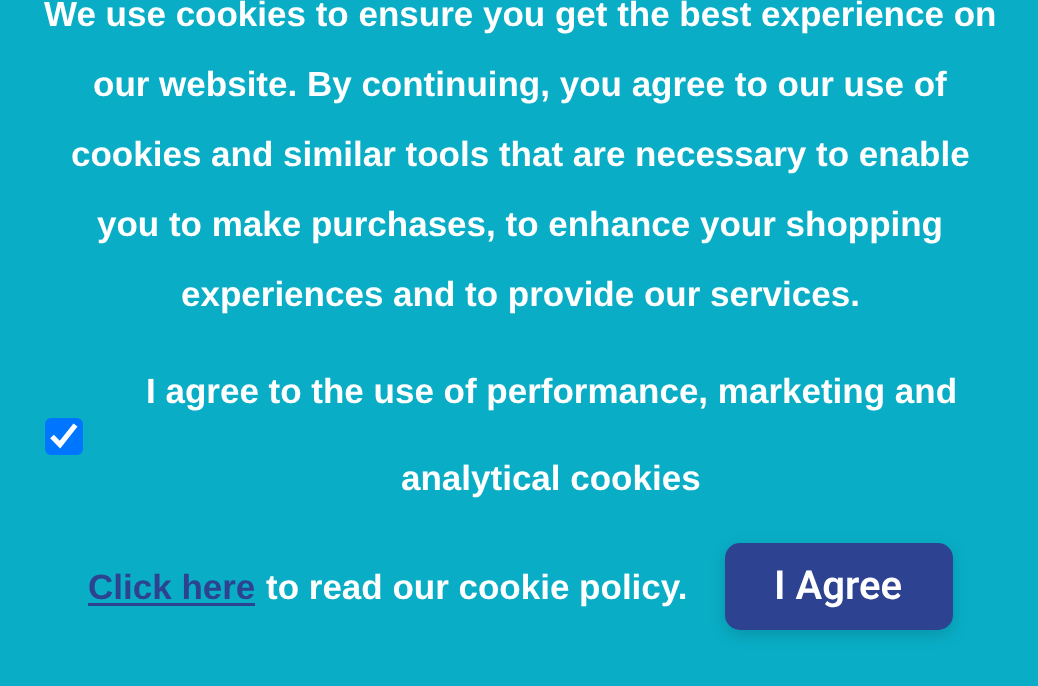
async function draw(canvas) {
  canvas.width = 1038;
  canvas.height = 686;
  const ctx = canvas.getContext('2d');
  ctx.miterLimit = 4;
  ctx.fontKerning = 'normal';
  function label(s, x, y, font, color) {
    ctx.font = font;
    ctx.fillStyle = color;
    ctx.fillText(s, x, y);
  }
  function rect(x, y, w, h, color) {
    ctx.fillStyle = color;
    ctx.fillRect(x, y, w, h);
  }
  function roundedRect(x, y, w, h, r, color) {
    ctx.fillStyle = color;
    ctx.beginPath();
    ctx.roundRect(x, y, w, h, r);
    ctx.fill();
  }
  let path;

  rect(0, 0, 1038, 686, '#09aec6');
  label('We use cookies to ensure you get the best experience on', 44, 26, 'bold 35px Liberation Sans', '#fff');
  label('our website. By continuing, you agree to our use of', 93, 96, 'bold 35px Liberation Sans', '#fff');
  label('cookies and similar tools that are necessary to enable', 71, 166, 'bold 35px Liberation Sans', '#fff');
  label('you to make purchases, to enhance your shopping', 97, 236, 'bold 35px Liberation Sans', '#fff');
  label('experiences and to provide our services.', 181, 306, 'bold 35px Liberation Sans', '#fff');
  label('I agree to the use of performance, marketing and', 146, 403, 'bold 35px Liberation Sans', '#fff');
  roundedRect(45, 418, 38, 37, 6, '#0075ff');
  path = new Path2D('M52 436.5L60 444.5L75.5 425');
  ctx.strokeStyle = '#fff';
  ctx.lineWidth = 5.2;
  ctx.stroke(path);
  label('analytical cookies', 401, 490, 'bold 35px Liberation Sans', '#fff');
  label('Click here', 88, 599, 'bold 35px Liberation Sans', '#2d4391');
  rect(88, 603, 167, 3, '#2d4391');
  label('to read our cookie policy.', 266, 599, 'bold 35px Liberation Sans', '#fff');
  ctx.fillStyle = '#00000026';
  ctx.filter = 'blur(7.5px)';
  ctx.beginPath();
  ctx.roundRect(725, 548, 228, 87, 15);
  ctx.fill();
  ctx.filter = 'none';
  roundedRect(725, 543, 228, 87, 15, '#2d4391');
  label('I Agree', 774, 599, '600 40px Roboto', '#fff');
}

draw(document.querySelector('canvas'));
